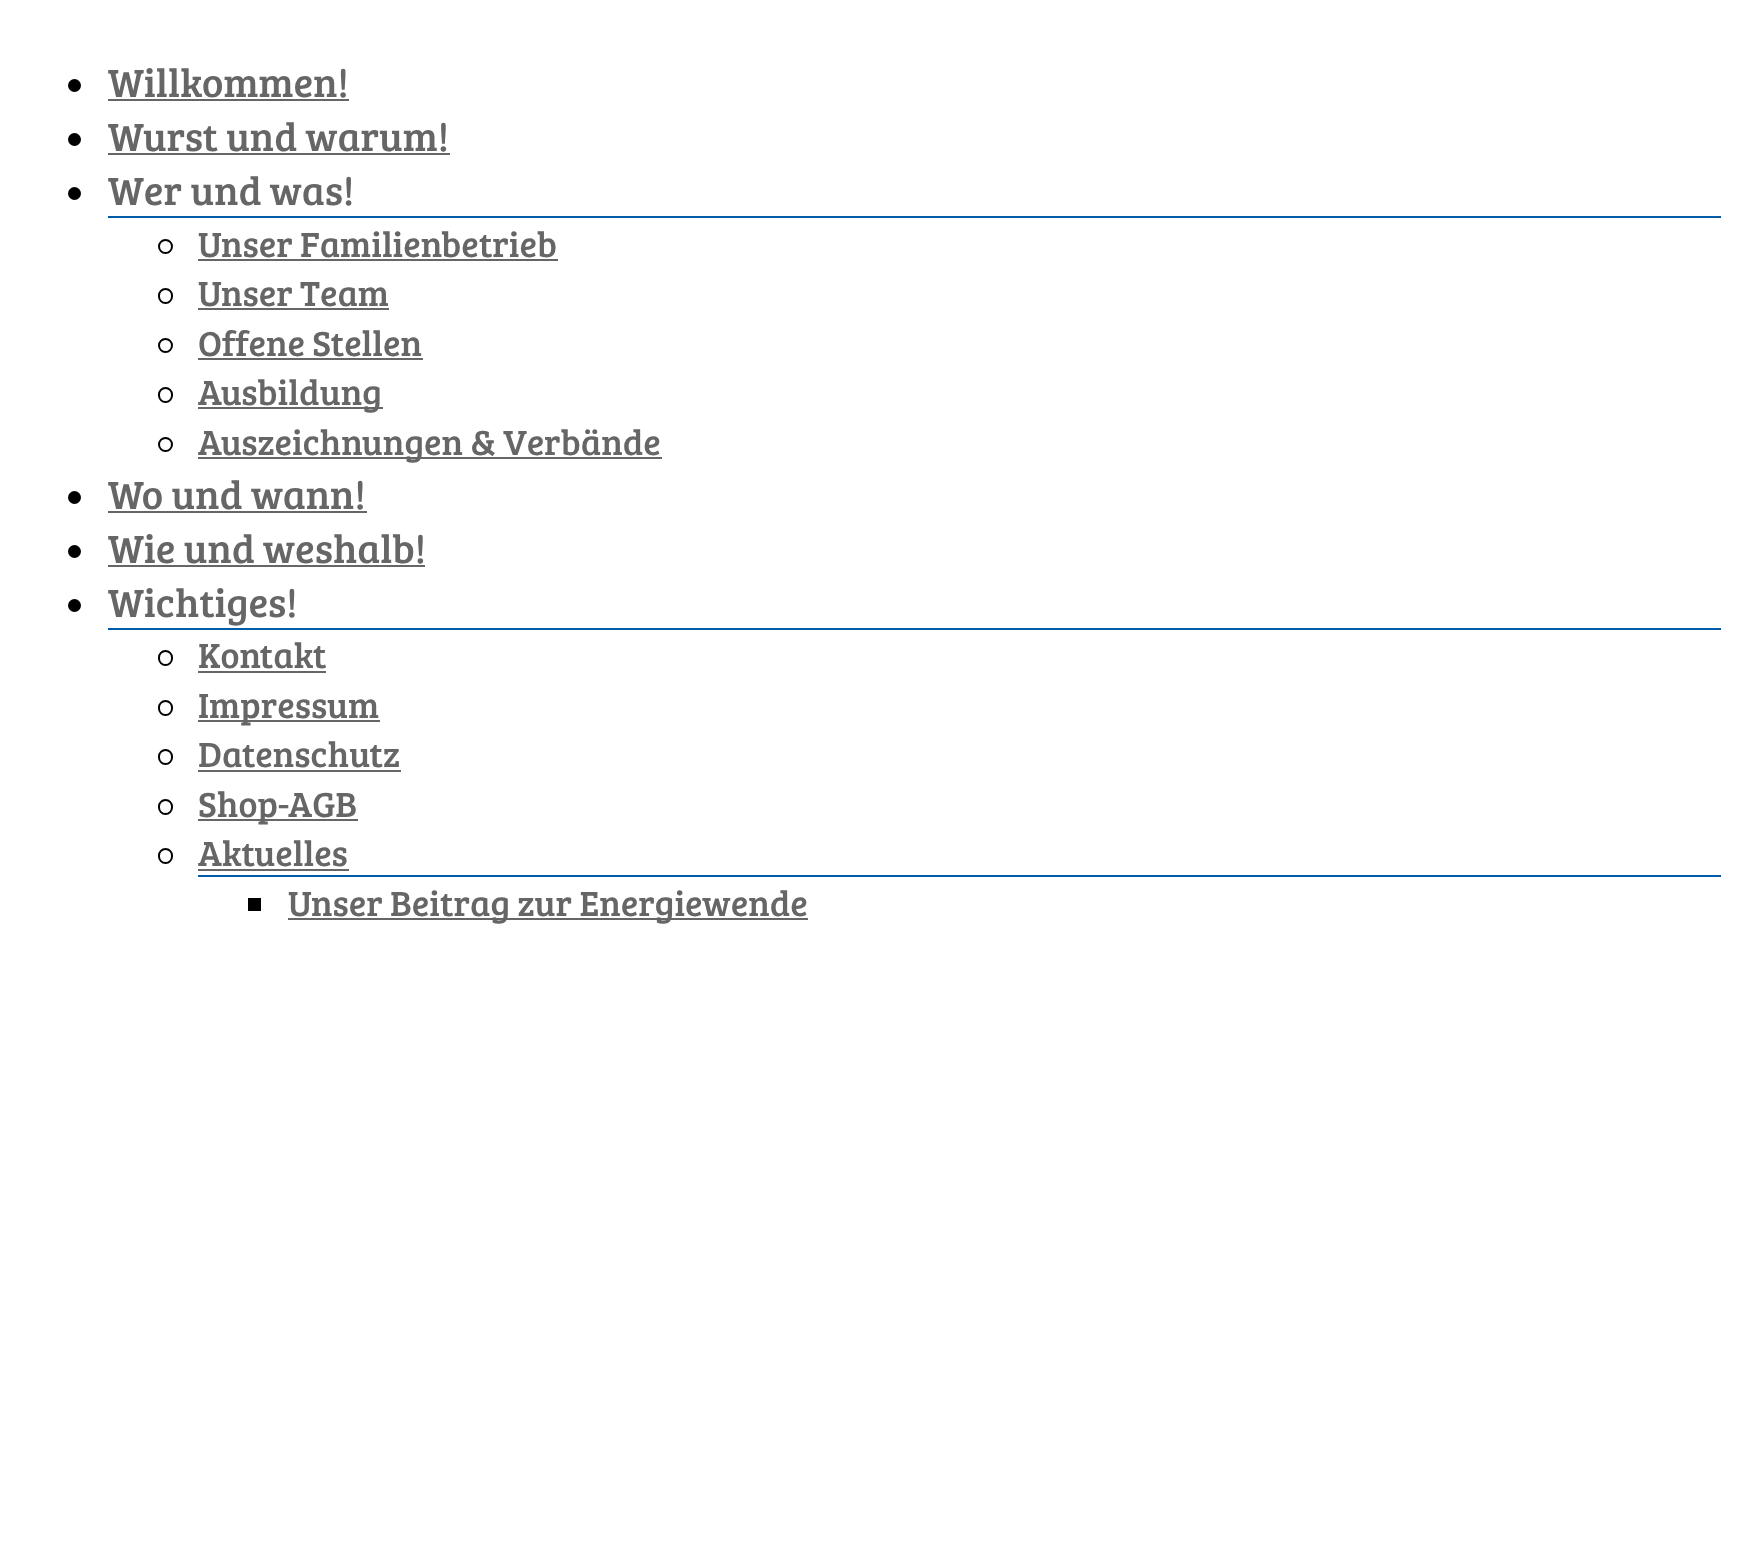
async function draw(canvas) {
  canvas.width = 1738;
  canvas.height = 1541;
  const ctx = canvas.getContext('2d');
  ctx.miterLimit = 4;
  ctx.fontKerning = 'normal';
  function label(s, x, y, font, color) {
    ctx.font = font;
    ctx.fillStyle = color;
    ctx.fillText(s, x, y);
  }
  function rect(x, y, w, h, color) {
    ctx.fillStyle = color;
    ctx.fillRect(x, y, w, h);
  }

  rect(0, 0, 1738, 1541, '#fff');
  ctx.fillStyle = '#000';
  ctx.beginPath();
  ctx.arc(74.5, 85.5, 6.5, 0, 2 * Math.PI);
  ctx.fill();
  label('Willkommen!', 108, 97, '40.5px Bree Serif', '#666');
  rect(108, 99, 241, 2, '#666');
  ctx.fillStyle = '#000';
  ctx.beginPath();
  ctx.arc(74.5, 139.5, 6.5, 0, 2 * Math.PI);
  ctx.fill();
  label('Wurst und warum!', 108, 151, '40.5px Bree Serif', '#666');
  rect(108, 153, 342, 2, '#666');
  ctx.fillStyle = '#000';
  ctx.beginPath();
  ctx.arc(74.5, 193.5, 6.5, 0, 2 * Math.PI);
  ctx.fill();
  label('Wer und was!', 108, 205, '40.5px Bree Serif', '#666');
  rect(108, 216, 1613, 2, '#005ca9');
  ctx.beginPath();
  ctx.arc(165.5, 246.5, 6.5, 0, 2 * Math.PI);
  ctx.strokeStyle = '#000';
  ctx.lineWidth = 2;
  ctx.stroke();
  label('Unser Familienbetrieb', 198, 257, '36px Bree Serif', '#666');
  rect(198, 259, 360, 2, '#666');
  ctx.beginPath();
  ctx.roundRect(159, 289, 13, 14, 6.5);
  ctx.stroke();
  label('Unser Team', 198, 306, '36px Bree Serif', '#666');
  rect(198, 308, 191, 2, '#666');
  ctx.beginPath();
  ctx.arc(165.5, 345.5, 6.5, 0, 2 * Math.PI);
  ctx.stroke();
  label('Offene Stellen', 198, 356, '36px Bree Serif', '#666');
  rect(198, 358, 225, 2, '#666');
  ctx.beginPath();
  ctx.roundRect(159, 388, 13, 14, 6.5);
  ctx.stroke();
  rect(198, 407, 185, 2, '#666');
  label('Ausbildung', 198, 405, '36px Bree Serif', '#666');
  ctx.beginPath();
  ctx.arc(165.5, 444.5, 6.5, 0, 2 * Math.PI);
  ctx.stroke();
  rect(198, 457, 464, 2, '#666');
  label('Auszeichnungen & Verbände', 198, 455, '36px Bree Serif', '#666');
  ctx.fillStyle = '#000';
  ctx.beginPath();
  ctx.arc(74.5, 497.5, 6.5, 0, 2 * Math.PI);
  ctx.fill();
  label('Wo und wann!', 108, 509, '40.5px Bree Serif', '#666');
  rect(108, 511, 259, 2, '#666');
  ctx.fillStyle = '#000';
  ctx.beginPath();
  ctx.arc(74.5, 551.5, 6.5, 0, 2 * Math.PI);
  ctx.fill();
  label('Wie und weshalb!', 108, 563, '40.5px Bree Serif', '#666');
  rect(108, 565, 317, 2, '#666');
  ctx.fillStyle = '#000';
  ctx.beginPath();
  ctx.arc(74.5, 605.5, 6.5, 0, 2 * Math.PI);
  ctx.fill();
  label('Wichtiges!', 108, 617, '40.5px Bree Serif', '#666');
  rect(108, 628, 1613, 2, '#005ca9');
  ctx.beginPath();
  ctx.roundRect(159, 651, 13, 14, 6.5);
  ctx.stroke();
  label('Kontakt', 198, 668, '36px Bree Serif', '#666');
  rect(198, 671, 128, 2, '#666');
  ctx.beginPath();
  ctx.roundRect(159, 701, 13, 14, 6.5);
  ctx.stroke();
  rect(198, 720, 182, 2, '#666');
  label('Impressum', 198, 718, '36px Bree Serif', '#666');
  ctx.beginPath();
  ctx.roundRect(159, 750, 13, 14, 6.5);
  ctx.stroke();
  label('Datenschutz', 198, 767, '36px Bree Serif', '#666');
  rect(198, 770, 203, 2, '#666');
  ctx.beginPath();
  ctx.roundRect(159, 800, 13, 14, 6.5);
  ctx.stroke();
  rect(198, 819, 160, 2, '#666');
  label('Shop-AGB', 198, 817, '36px Bree Serif', '#666');
  ctx.beginPath();
  ctx.roundRect(159, 849, 13, 14, 6.5);
  ctx.stroke();
  label('Aktuelles', 198, 866, '36px Bree Serif', '#666');
  rect(198, 869, 151, 2, '#666');
  rect(198, 875, 1523, 2, '#005ca9');
  rect(248, 898, 13, 13, '#000');
  rect(288, 918, 520, 2, '#666');
  label('Unser Beitrag zur Energiewende', 288, 916, '36px Bree Serif', '#666');
}

draw(document.querySelector('canvas'));
